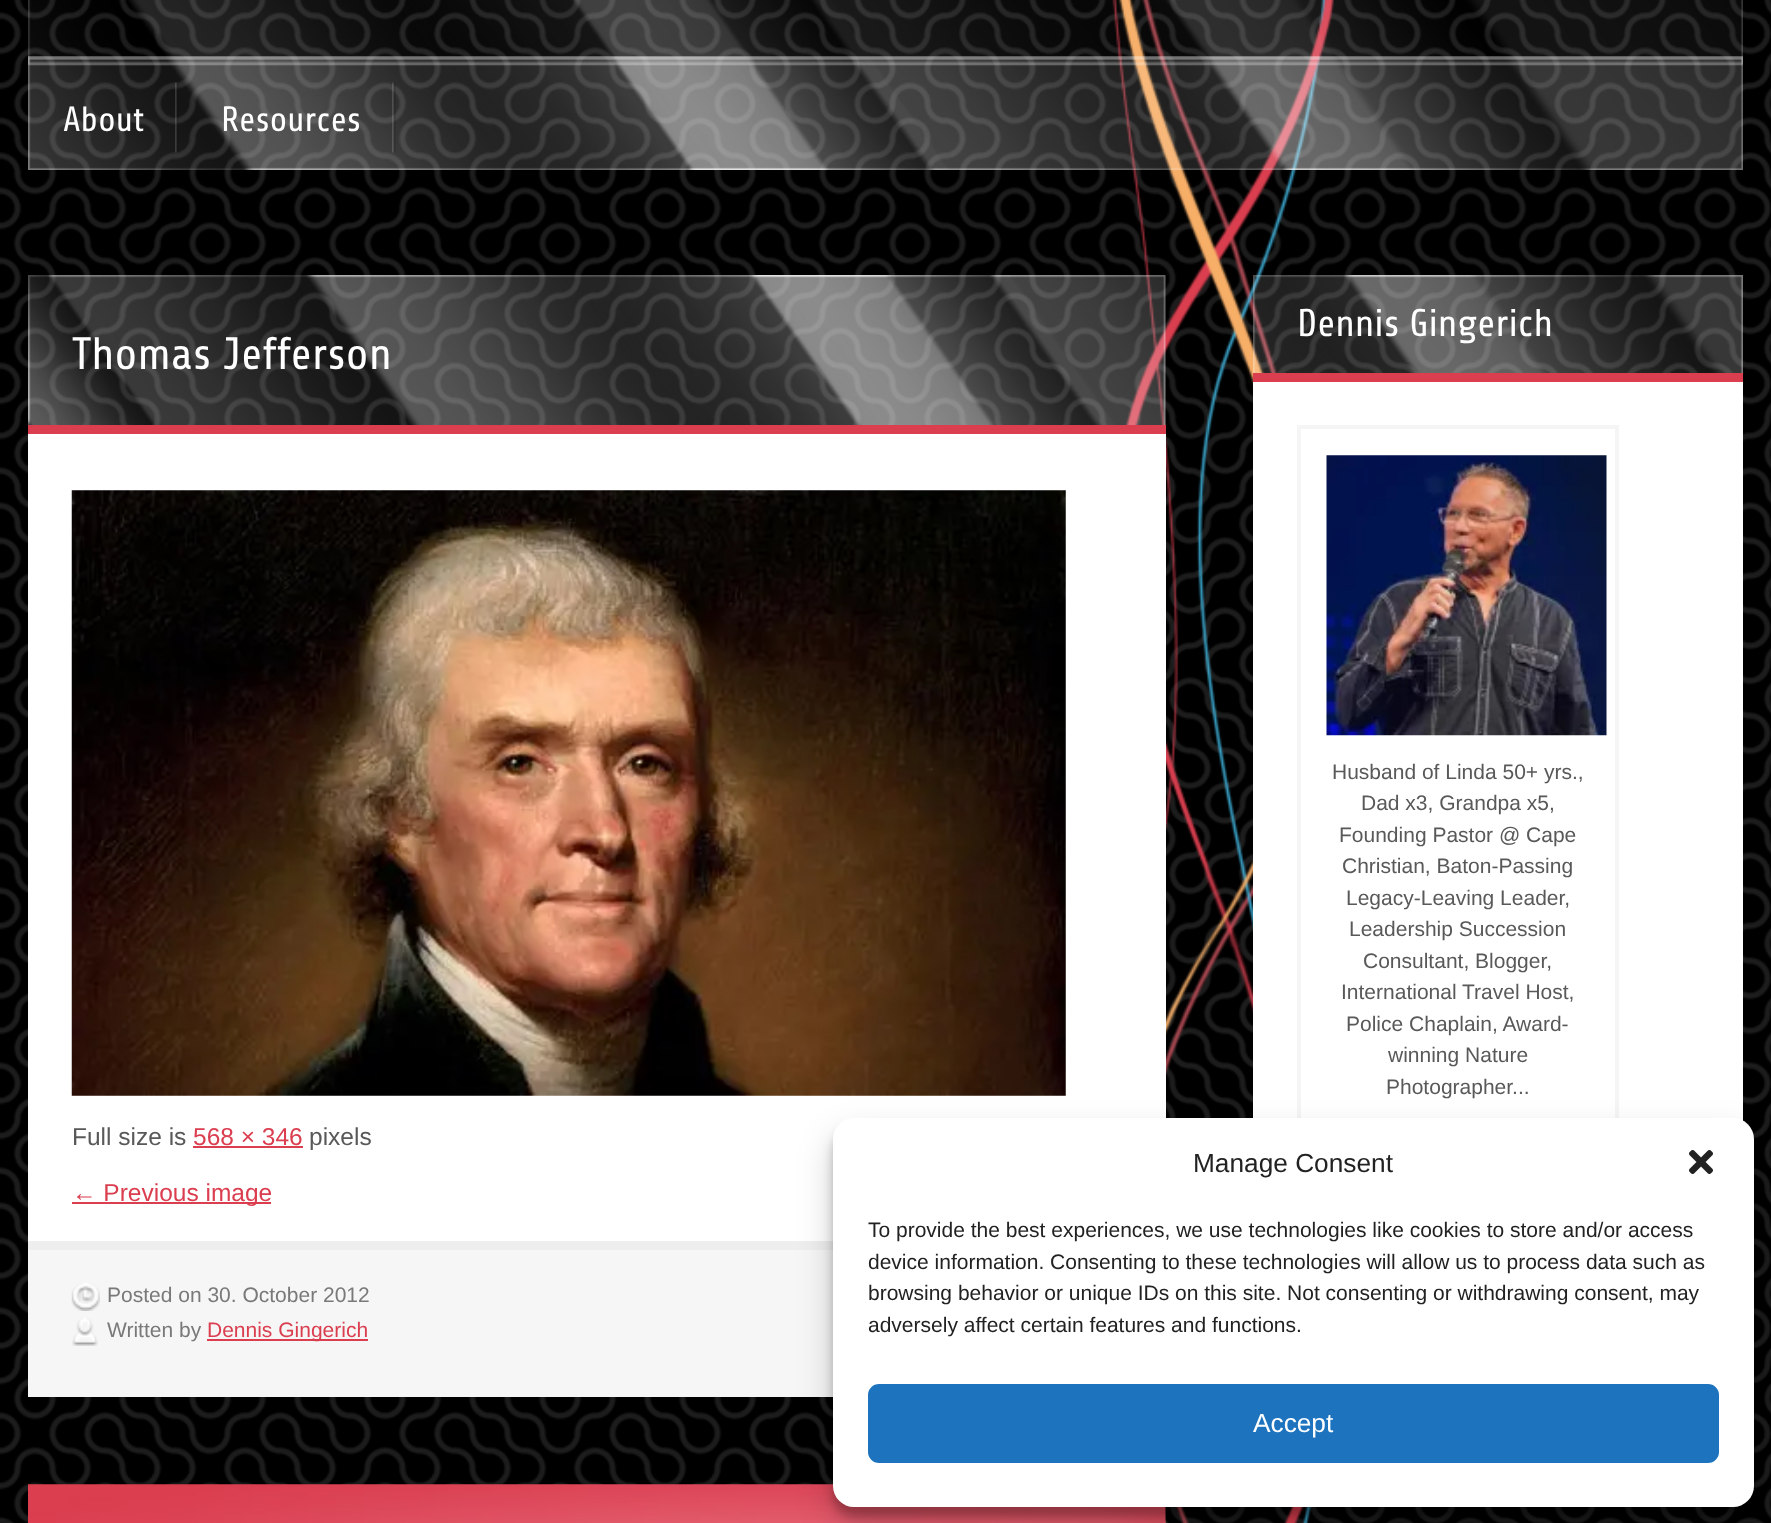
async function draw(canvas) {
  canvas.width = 1771;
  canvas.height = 1523;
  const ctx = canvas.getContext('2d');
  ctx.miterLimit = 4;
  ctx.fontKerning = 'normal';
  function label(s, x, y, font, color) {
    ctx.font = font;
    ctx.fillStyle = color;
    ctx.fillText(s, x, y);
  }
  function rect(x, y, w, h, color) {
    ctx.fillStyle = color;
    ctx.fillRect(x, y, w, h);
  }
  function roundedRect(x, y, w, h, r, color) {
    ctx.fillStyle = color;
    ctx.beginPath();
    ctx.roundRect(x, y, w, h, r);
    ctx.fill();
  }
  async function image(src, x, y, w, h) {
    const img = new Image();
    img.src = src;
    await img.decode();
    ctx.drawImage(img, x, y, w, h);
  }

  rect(0, 0, 1771, 1523, '#fff');
  await image('assets/img1.png', 0, 0, 1771, 1523);
  await image('assets/img2.png', 1112, 0, 222, 1523);
  await image('assets/img4.png', 28, 56, 1715, 114);
  await image('assets/img3.png', 28, 0, 1715, 57);
  await image('assets/img5.png', 175, 82, 4, 71);
  label('About', 63, 131, '35px Share', '#fff');
  await image('assets/img6.png', 392, 82, 4, 71);
  label('Resources', 221, 131, '35px Share', '#fff');
  await image('assets/img7.png', 28, 275, 1138, 150);
  label('Thomas Jefferson', 72, 369, '45.5px Share', '#fff');
  rect(28, 434, 1138, 807, '#fff');
  rect(28, 425, 1138, 9, '#da3e4f');
  await image('assets/img8.png', 71, 490, 995, 606);
  label('Full size is', 72, 1145, '24.5px Liberation Sans', '#595959');
  label('568 × 346', 193, 1145, '24.5px Liberation Sans', '#da3e4f');
  rect(193, 1146, 110, 2, '#da3e4f');
  label('pixels', 309, 1145, '24.5px Liberation Sans', '#595959');
  rect(72, 1202, 199, 2, '#da3e4f');
  label('← Previous image', 72, 1201, '24.5px Liberation Sans', '#da3e4f');
  rect(28, 1250, 805, 147, '#f6f6f6');
  rect(28, 1241, 805, 9, '#eee');
  await image('assets/img9.png', 71, 1283, 29, 28);
  label('Posted on 30. October 2012', 107, 1302, '21px Liberation Sans', '#797979');
  await image('assets/img10.png', 72, 1318, 26, 28);
  label('Written by', 107, 1337, '21px Liberation Sans', '#797979');
  rect(207, 1339, 161, 2, '#da3e4f');
  label('Dennis Gingerich', 207, 1337, '21px Liberation Sans', '#da3e4f');
  await image('assets/img11.png', 28, 1484, 1138, 39);
  await image('assets/img12.png', 1253, 275, 490, 98);
  label('Dennis Gingerich', 1297, 336, '38.5px Share', '#fff');
  rect(1253, 382, 490, 739, '#fff');
  rect(1253, 373, 490, 9, '#da3e4f');
  ctx.strokeStyle = '#f5f5f5';
  ctx.lineWidth = 4;
  ctx.strokeRect(1299, 427, 318, 695);
  await image('assets/img13.png', 1326, 455, 281, 281);
  label('Husband of Linda 50+ yrs.,', 1332, 779, '21px Liberation Sans', '#595959');
  label('Dad x3, Grandpa x5,', 1361, 810, '21px Liberation Sans', '#595959');
  label('Founding Pastor @ Cape', 1339, 842, '21px Liberation Sans', '#595959');
  label('Christian, Baton-Passing', 1342, 873, '21px Liberation Sans', '#595959');
  label('Legacy-Leaving Leader,', 1346, 905, '21px Liberation Sans', '#595959');
  label('Leadership Succession', 1349, 936, '21px Liberation Sans', '#595959');
  label('Consultant, Blogger,', 1363, 968, '21px Liberation Sans', '#595959');
  label('International Travel Host,', 1341, 999, '21px Liberation Sans', '#595959');
  label('Police Chaplain, Award-', 1346, 1031, '21px Liberation Sans', '#595959');
  label('winning Nature', 1388, 1062, '21px Liberation Sans', '#595959');
  label('Photographer...', 1386, 1094, '21px Liberation Sans', '#595959');
  ctx.fillStyle = '#0000003b';
  ctx.filter = 'blur(5px)';
  ctx.beginPath();
  ctx.roundRect(833, 1129, 921, 388, 21);
  ctx.fill();
  ctx.filter = 'none';
  ctx.fillStyle = '#00000030';
  ctx.filter = 'blur(17.5px)';
  ctx.beginPath();
  ctx.roundRect(833, 1136, 921, 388, 21);
  ctx.fill();
  ctx.filter = 'none';
  roundedRect(833, 1118, 921, 389, 21, '#fff');
  label('Manage Consent', 1193, 1172, '26.25px Liberation Sans', '#222');
  await image('assets/img14.png', 1689, 1150, 24, 24);
  label('To provide the best experiences, we use technologies like cookies to store and/or access', 868, 1237, '21px Liberation Sans', '#222');
  label('device information. Consenting to these technologies will allow us to process data such as', 868, 1269, '21px Liberation Sans', '#222');
  label('browsing behavior or unique IDs on this site. Not consenting or withdrawing consent, may', 868, 1300, '21px Liberation Sans', '#222');
  label('adversely affect certain features and functions.', 868, 1332, '21px Liberation Sans', '#222');
  ctx.fillStyle = '#1e73be';
  ctx.beginPath();
  ctx.roundRect(869, 1385, 849, 77, 10);
  ctx.fill();
  ctx.strokeStyle = '#1e73be';
  ctx.lineWidth = 2;
  ctx.stroke();
  label('Accept', 1253, 1432, '26.25px Liberation Sans', '#fff');
}

draw(document.querySelector('canvas'));
